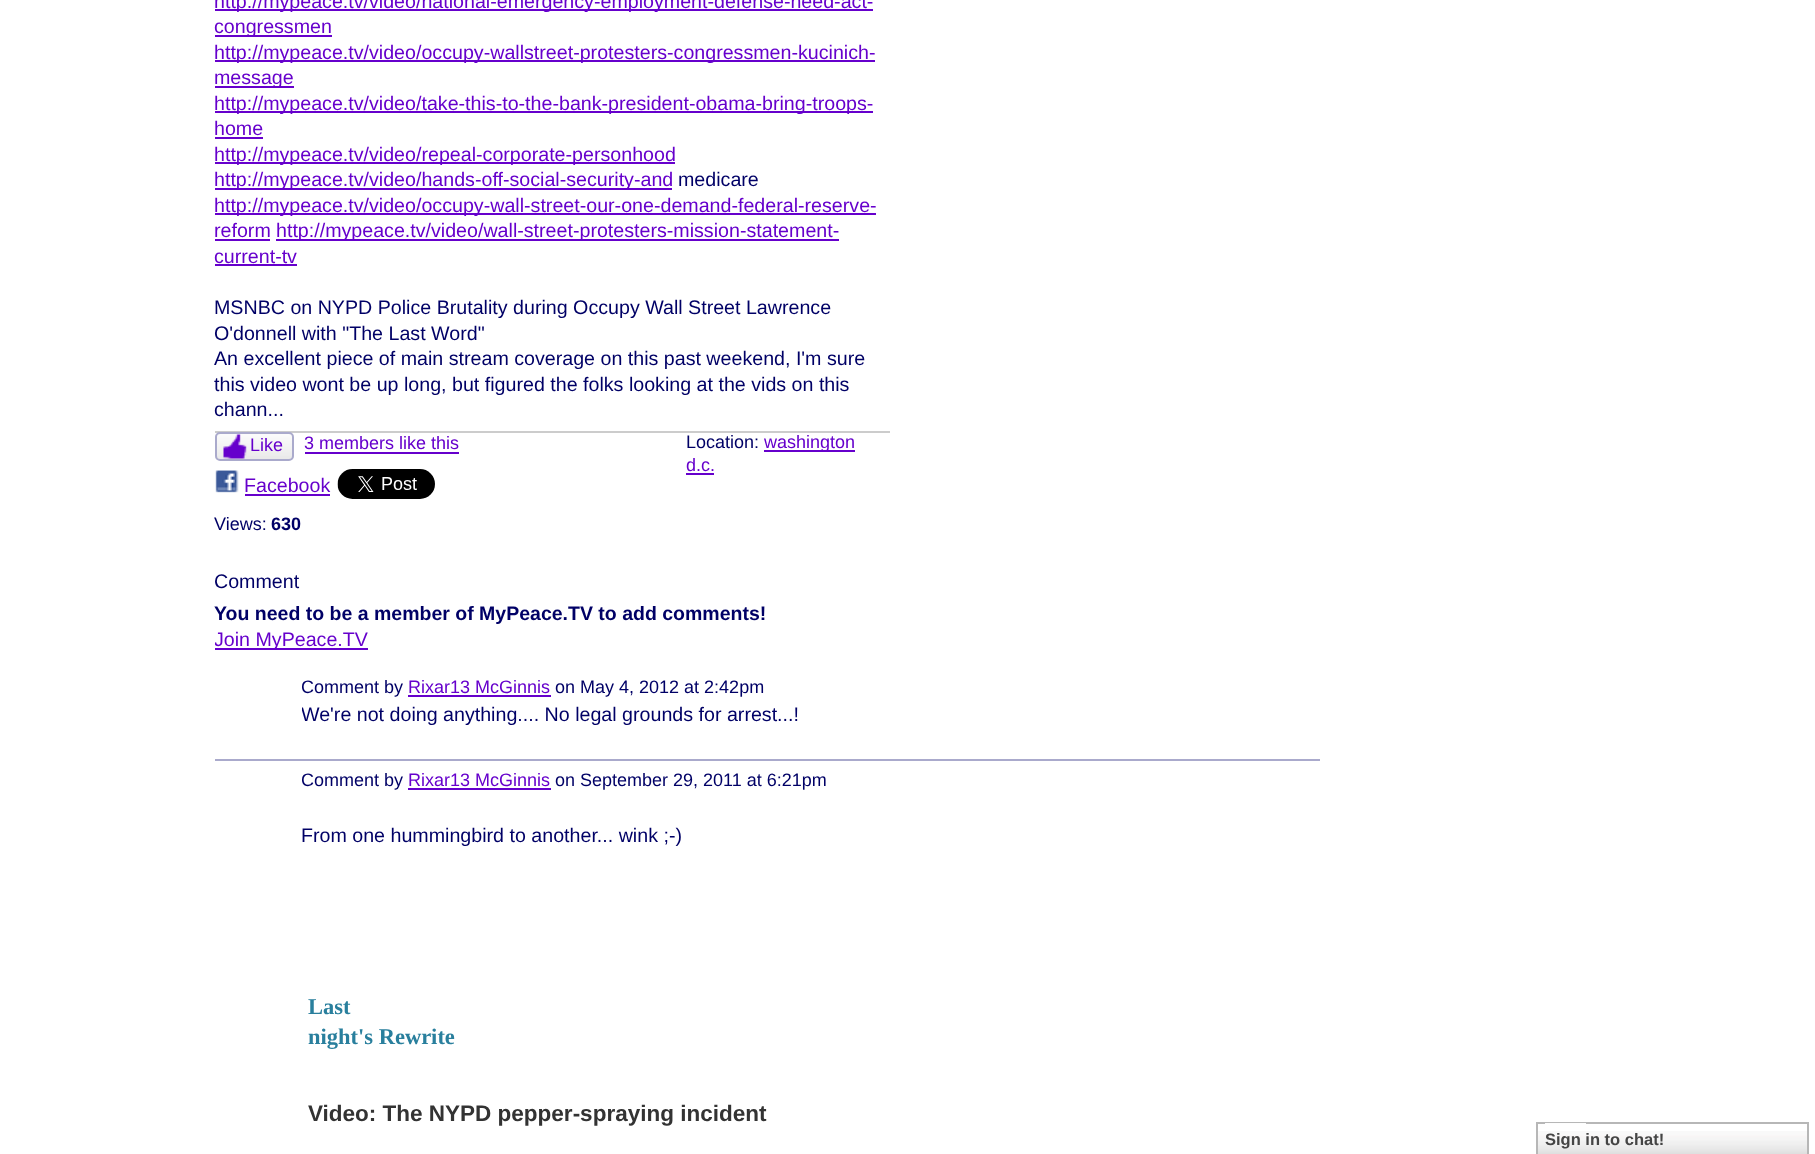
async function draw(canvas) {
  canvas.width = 1815;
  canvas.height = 1154;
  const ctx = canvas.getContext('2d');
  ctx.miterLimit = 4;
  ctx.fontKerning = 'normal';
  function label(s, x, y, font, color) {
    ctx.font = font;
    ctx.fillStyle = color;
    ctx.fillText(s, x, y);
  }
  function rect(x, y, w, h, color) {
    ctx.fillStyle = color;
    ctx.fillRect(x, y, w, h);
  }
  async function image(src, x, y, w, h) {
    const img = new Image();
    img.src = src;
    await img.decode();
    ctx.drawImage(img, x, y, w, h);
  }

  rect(0, 0, 1815, 1154, '#fff');
  rect(215, 431, 675, 2, '#ccc');
  rect(215, 9, 658, 2, '#60c');
  label('http://mypeace.tv/video/national-emergency-employment-defense-need-act-', 214, 8, '19.65px Liberation Sans', '#60c');
  rect(215, 35, 117, 2, '#60c');
  label('congressmen', 214, 33, '19.65px Liberation Sans', '#60c');
  rect(215, 60, 660, 2, '#60c');
  label('http://mypeace.tv/video/occupy-wallstreet-protesters-congressmen-kucinich-', 214, 59, '19.65px Liberation Sans', '#60c');
  rect(215, 86, 79, 2, '#60c');
  label('message', 214, 84, '19.65px Liberation Sans', '#60c');
  rect(215, 111, 658, 2, '#60c');
  label('http://mypeace.tv/video/take-this-to-the-bank-president-obama-bring-troops-', 214, 110, '19.65px Liberation Sans', '#60c');
  label('home', 214, 135, '19.65px Liberation Sans', '#60c');
  rect(215, 137, 48, 2, '#60c');
  rect(215, 162, 460, 2, '#60c');
  label('http://mypeace.tv/video/repeal-corporate-personhood', 214, 161, '19.65px Liberation Sans', '#60c');
  rect(215, 188, 457, 2, '#60c');
  label('http://mypeace.tv/video/hands-off-social-security-and', 214, 186, '19.65px Liberation Sans', '#60c');
  label('medicare', 678, 186, '19.65px Liberation Sans', '#006');
  rect(215, 213, 661, 2, '#60c');
  label('http://mypeace.tv/video/occupy-wall-street-our-one-demand-federal-reserve-', 214, 212, '19.65px Liberation Sans', '#60c');
  label('reform', 214, 237, '19.65px Liberation Sans', '#60c');
  rect(215, 239, 55, 2, '#60c');
  rect(276, 239, 563, 2, '#60c');
  label('http://mypeace.tv/video/wall-street-protesters-mission-statement-', 276, 237, '19.65px Liberation Sans', '#60c');
  label('current-tv', 214, 263, '19.65px Liberation Sans', '#60c');
  rect(215, 264, 82, 2, '#60c');
  label('MSNBC on NYPD Police Brutality during Occupy Wall Street Lawrence', 214, 314, '19.65px Liberation Sans', '#006');
  label('O\'donnell with "The Last Word"', 214, 340, '19.65px Liberation Sans', '#006');
  label('An excellent piece of main stream coverage on this past weekend, I\'m sure', 214, 365, '19.65px Liberation Sans', '#006');
  label('this video wont be up long, but figured the folks looking at the vids on this', 214, 391, '19.65px Liberation Sans', '#006');
  label('chann...', 214, 416, '19.65px Liberation Sans', '#006');
  await image('assets/img1.png', 215, 434, 79, 26);
  ctx.beginPath();
  ctx.roundRect(216, 433, 77, 27, 4);
  ctx.strokeStyle = '#aac';
  ctx.lineWidth = 2;
  ctx.stroke();
  await image('assets/img2.png', 223, 434, 24, 25);
  label('Like', 250, 451, '18px Liberation Sans', '#60c');
  label('3 members like this', 304, 449, '18px Liberation Sans', '#60c');
  rect(305, 452, 154, 2, '#60c');
  await image('assets/img3.png', 215, 470, 24, 23);
  label('Facebook', 244, 492, '19.65px Liberation Sans', '#60c');
  rect(245, 494, 85, 2, '#60c');
  await image('assets/img4.png', 337, 469, 98, 30);
  label('Views:', 214, 530, '18px Liberation Sans', '#006');
  label('630', 271, 530, 'bold 18px Liberation Sans', '#006');
  label('Location:', 686, 448, '18px Liberation Sans', '#006');
  rect(764, 450, 91, 2, '#60c');
  label('washington', 764, 448, '18px Liberation Sans', '#60c');
  label('d.c.', 686, 471, '18px Liberation Sans', '#60c');
  rect(686, 473, 28, 2, '#60c');
  label('Comment', 214, 588, '19.65px Liberation Sans', '#006');
  label('You need to be a member of MyPeace.TV to add comments!', 214, 620, 'bold 19.5px Liberation Sans', '#006');
  rect(215, 648, 153, 2, '#60c');
  ctx.save();
  ctx.beginPath();
  ctx.rect(215, 627, 1105, 26);
  ctx.clip();
  label('Join MyPeace.TV', 214, 646, '19.65px Liberation Sans', '#60c');
  ctx.restore();
  rect(215, 759, 1105, 2, '#aac');
  ctx.save();
  ctx.beginPath();
  ctx.rect(302, 677, 966, 24);
  ctx.clip();
  label('Comment by', 301, 693, '18px Liberation Sans', '#006');
  ctx.restore();
  label('Rixar13 McGinnis', 408, 693, '18px Liberation Sans', '#60c');
  rect(408, 695, 143, 2, '#60c');
  label('on May 4, 2012 at 2:42pm', 555, 693, '18px Liberation Sans', '#006');
  ctx.save();
  ctx.beginPath();
  ctx.rect(302, 702, 966, 27);
  ctx.clip();
  label('We\'re not doing anything.... No legal grounds for arrest...!', 301, 721, '19.65px Liberation Sans', '#006');
  ctx.restore();
  ctx.save();
  ctx.beginPath();
  ctx.rect(302, 770, 966, 24);
  ctx.clip();
  label('Comment by', 301, 786, '18px Liberation Sans', '#006');
  ctx.restore();
  label('Rixar13 McGinnis', 408, 786, '18px Liberation Sans', '#60c');
  rect(408, 788, 143, 2, '#60c');
  label('on September 29, 2011 at 6:21pm', 555, 786, '18px Liberation Sans', '#006');
  label('From one hummingbird to another... wink ;-)', 301, 842, '19.65px Liberation Sans', '#006');
  label('Last', 308, 1014, 'bold 22.5px Liberation Serif', '#297f9d');
  label('night\'s Rewrite', 308, 1044, 'bold 22.5px Liberation Serif', '#297f9d');
  label('Video: The NYPD pepper-spraying incident', 308, 1121, 'bold 22.5px Liberation Sans', '#333');
  await image('assets/img5.png', 1538, 1131, 269, 23);
  ctx.strokeStyle = '#b7b7b7';
  ctx.strokeRect(1537, 1123, 271, 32);
  rect(1545, 1123, 41, 1, '#fdfdfd');
  label('Sign in to chat!', 1545, 1145, 'bold 16.5px Liberation Sans', '#454545');
}

draw(document.querySelector('canvas'));
